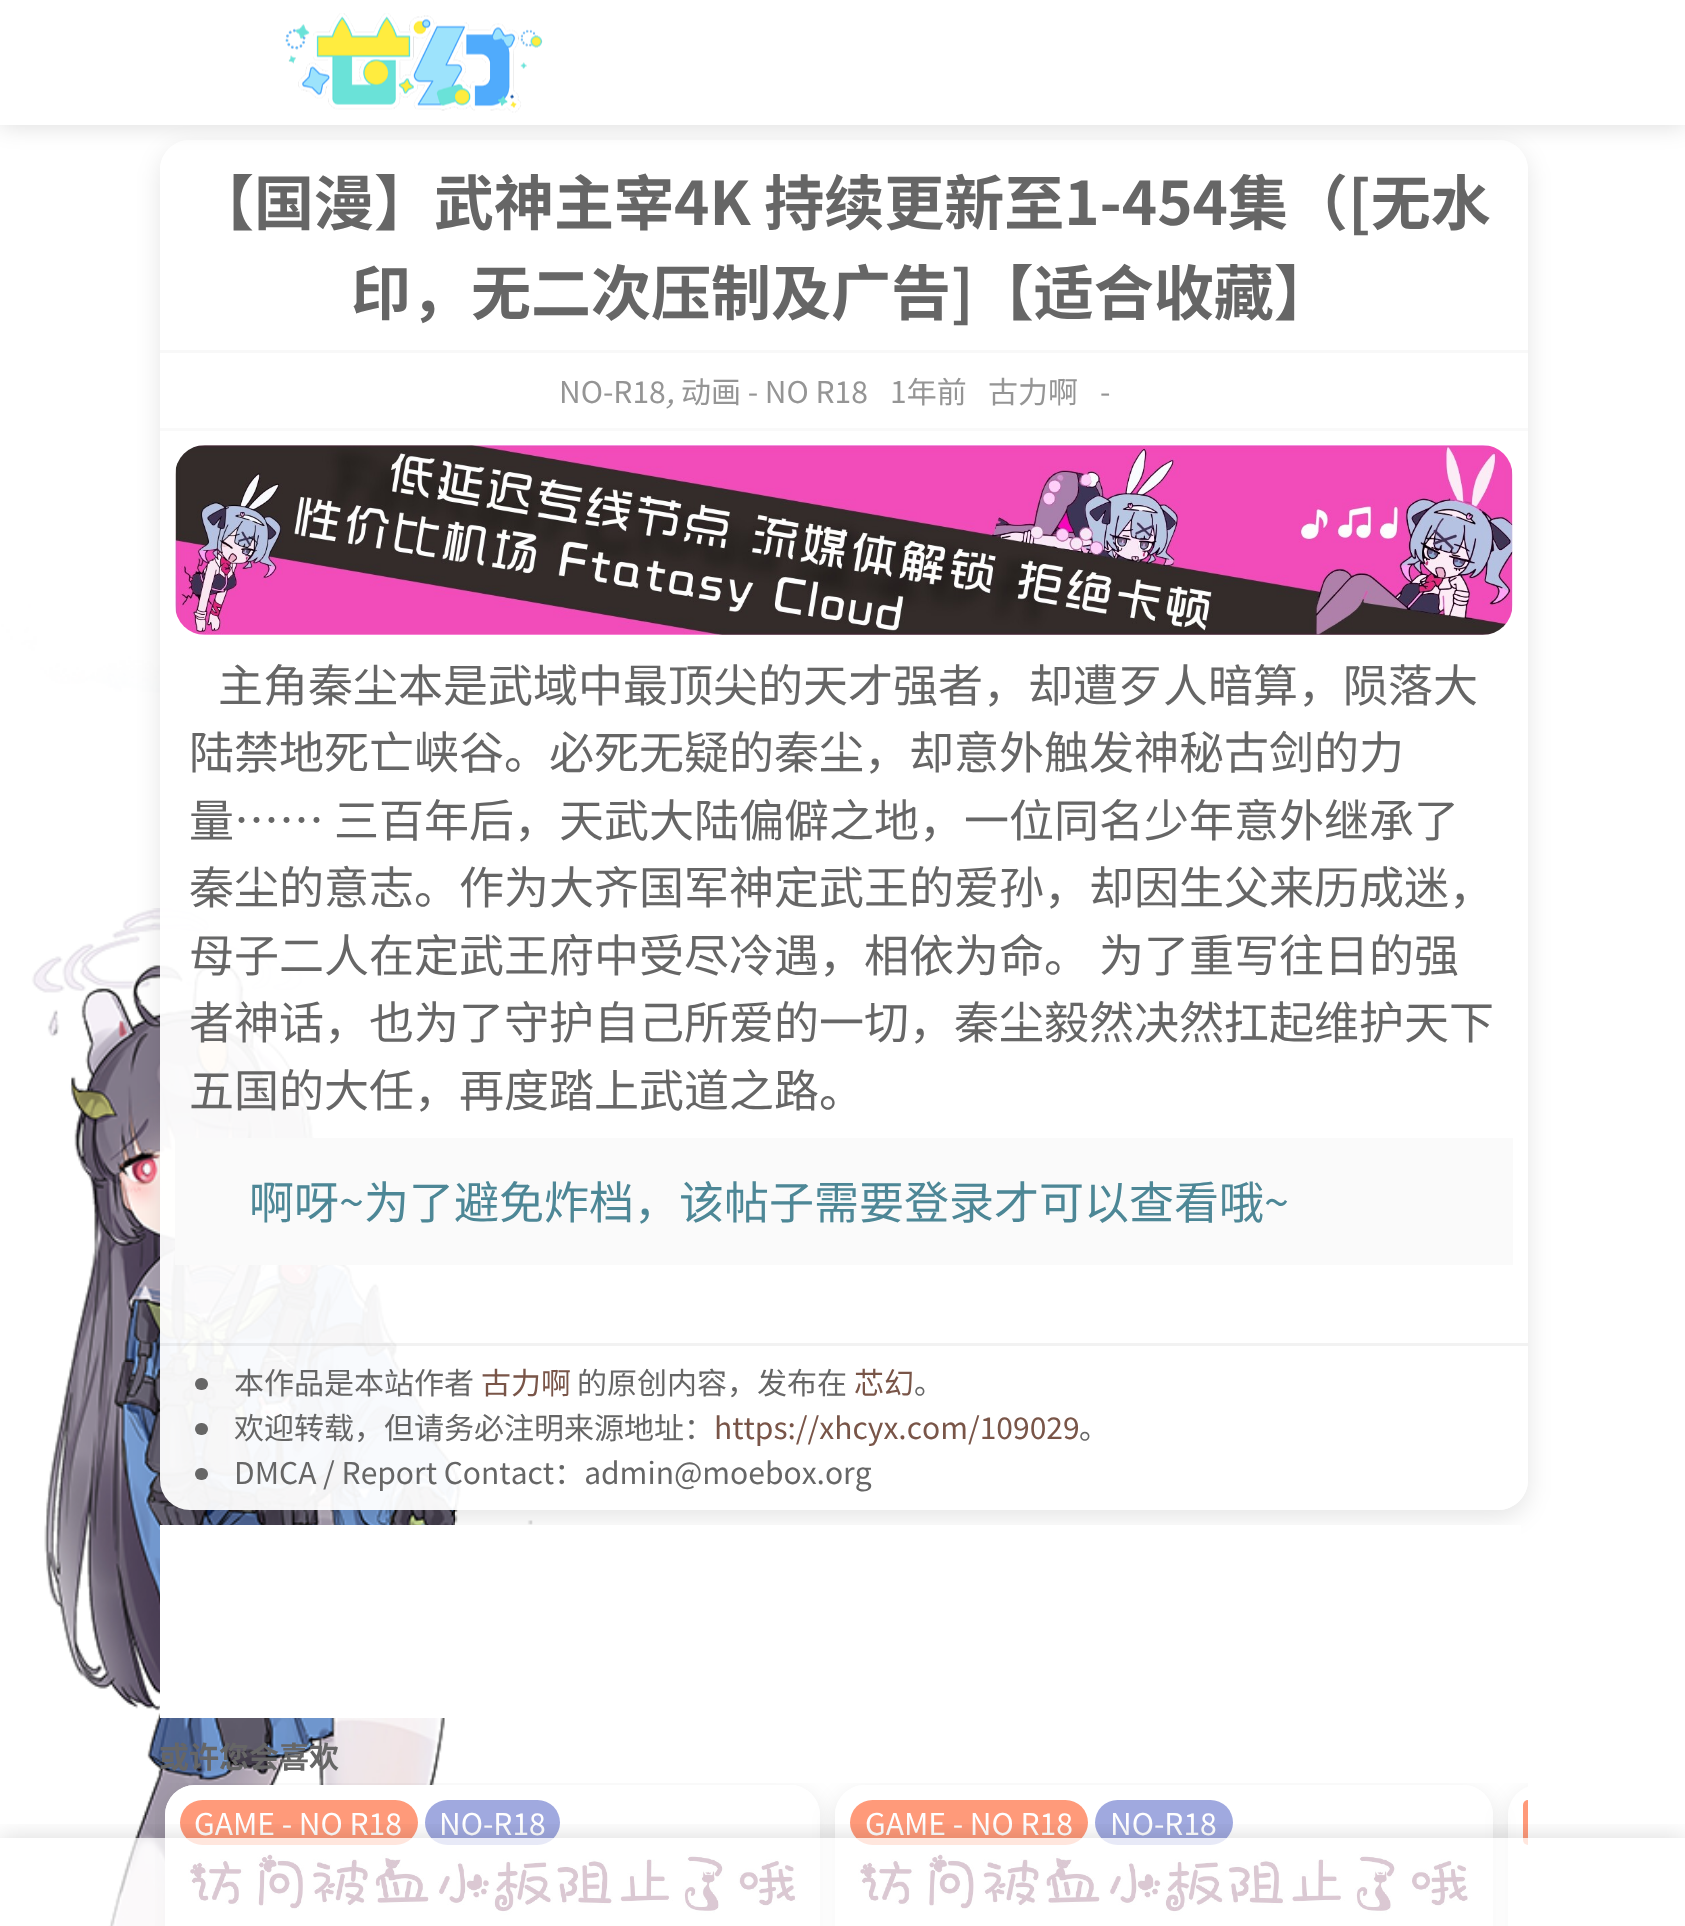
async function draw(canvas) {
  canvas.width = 1685;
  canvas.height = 1926;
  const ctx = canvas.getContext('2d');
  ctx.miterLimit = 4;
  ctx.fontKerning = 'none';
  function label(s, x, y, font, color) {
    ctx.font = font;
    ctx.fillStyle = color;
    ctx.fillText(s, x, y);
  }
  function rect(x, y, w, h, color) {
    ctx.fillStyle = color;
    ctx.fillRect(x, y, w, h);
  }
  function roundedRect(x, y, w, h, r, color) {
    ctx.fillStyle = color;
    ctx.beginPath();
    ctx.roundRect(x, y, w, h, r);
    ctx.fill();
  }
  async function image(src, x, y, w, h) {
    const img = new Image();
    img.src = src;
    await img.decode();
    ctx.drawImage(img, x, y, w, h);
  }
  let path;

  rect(0, 0, 1685, 1926, '#fff');
  await image('assets/img1.png', 0, 125, 1685, 1801);
  ctx.save();
  path = new Path2D('M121 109H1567V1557H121ZM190 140H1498C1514.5 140 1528 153.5 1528 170V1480C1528 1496.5 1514.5 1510 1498 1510H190C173.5 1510 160 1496.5 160 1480V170C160 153.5 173.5 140 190 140Z');
  ctx.clip(path, 'evenodd');
  ctx.fillStyle = '#0000001a';
  ctx.filter = 'blur(12.5px)';
  ctx.beginPath();
  ctx.roundRect(160, 148, 1368, 1370, 30);
  ctx.fill();
  ctx.filter = 'none';
  ctx.restore();
  roundedRect(160, 140, 1368, 1370, 30, '#fffffff2');
  ctx.fillStyle = '#00000026';
  ctx.filter = 'blur(12.5px)';
  ctx.beginPath();
  ctx.rect(0, 0, 1685, 125);
  ctx.fill();
  ctx.filter = 'none';
  rect(0, 0, 1685, 125, '#fff');
  await image('assets/img2.png', 285, 13, 258, 100);
  label('【国漫】武神主宰4K 持续更新至1-454集（[无水', 194, 225, 'bold 60px Noto Sans CJK SC', '#666');
  label('印，无二次压制及广告]【适合收藏】', 351, 315, 'bold 60px Noto Sans CJK SC', '#666');
  rect(160, 350, 1368, 3, '#f8f8f8');
  rect(160, 428, 1368, 3, '#f9f9f9');
  label('NO-R18', 559, 403, '30px Noto Sans CJK SC', '#959595');
  label(',', 666, 403, 'italic 30px Noto Sans CJK SC', '#959595');
  label('动画 - NO R18', 681, 403, '30px Noto Sans CJK SC', '#959595');
  label('1年前', 890, 403, '30px Noto Sans CJK SC', '#959595');
  label('古力啊', 988, 403, '30px Noto Sans CJK SC', '#959595');
  label('-', 1100, 403, '30px Noto Sans CJK SC', '#959595');
  await image('assets/img3.png', 175, 445, 1338, 190);
  label('主角秦尘本是武域中最顶尖的天才强者，却遭歹人暗算，陨落大', 218, 702, '45px Noto Sans CJK SC', '#666');
  label('陆禁地死亡峡谷。必死无疑的秦尘，却意外触发神秘古剑的力', 189, 769, '45px Noto Sans CJK SC', '#666');
  label('量…… 三百年后，天武大陆偏僻之地，一位同名少年意外继承了', 189, 837, '45px Noto Sans CJK SC', '#666');
  label('秦尘的意志。作为大齐国军神定武王的爱孙，却因生父来历成迷，', 189, 904, '45px Noto Sans CJK SC', '#666');
  label('母子二人在定武王府中受尽冷遇，相依为命。 为了重写往日的强', 189, 972, '45px Noto Sans CJK SC', '#666');
  label('者神话，也为了守护自己所爱的一切，秦尘毅然决然扛起维护天下', 189, 1039, '45px Noto Sans CJK SC', '#666');
  label('五国的大任，再度踏上武道之路。', 189, 1107, '45px Noto Sans CJK SC', '#666');
  rect(175, 1138, 1338, 127, '#fafafa');
  label('啊呀~为了避免炸档，该帖子需要登录才可以查看哦~', 249, 1219, '45px Noto Sans CJK SC', '#4d8796');
  rect(160, 1343, 1368, 3, '#0000000d');
  roundedRect(195, 1378, 13, 12, 6, '#666');
  label('本作品是本站作者', 234, 1394, '30px Noto Sans CJK SC', '#666');
  label('古力啊', 481, 1394, '30px Noto Sans CJK SC', '#795548');
  label('的原创内容，发布在', 577, 1394, '30px Noto Sans CJK SC', '#666');
  label('芯幻', 854, 1394, '30px Noto Sans CJK SC', '#795548');
  label('。', 914, 1394, '30px Noto Sans CJK SC', '#666');
  roundedRect(195, 1423, 13, 12, 6, '#666');
  label('欢迎转载，但请务必注明来源地址：', 234, 1439, '30px Noto Sans CJK SC', '#666');
  label('https://xhcyx.com/109029', 714, 1439, '30px Noto Sans CJK SC', '#795548');
  label('。', 1079, 1439, '30px Noto Sans CJK SC', '#666');
  roundedRect(195, 1468, 13, 12, 6, '#666');
  label('DMCA / Report Contact：admin@moebox.org', 234, 1484, '30px Noto Sans CJK SC', '#666');
  rect(160, 1525, 1361, 193, '#fff');
  label('或许您会喜欢', 159, 1768, 'bold 30px Noto Sans CJK SC', '#666');
  ctx.save();
  ctx.beginPath();
  ctx.rect(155, 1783, 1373, 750);
  ctx.clip();
  path = new Path2D('M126 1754H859V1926H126ZM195 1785H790C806.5 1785 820 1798.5 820 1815V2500C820 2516.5 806.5 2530 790 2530H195C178.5 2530 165 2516.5 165 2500V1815C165 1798.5 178.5 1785 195 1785Z');
  ctx.clip(path, 'evenodd');
  ctx.fillStyle = '#0000001a';
  ctx.filter = 'blur(12.5px)';
  ctx.beginPath();
  ctx.roundRect(165, 1793, 655, 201, 30);
  ctx.fill();
  ctx.filter = 'none';
  ctx.restore();
  roundedRect(165, 1785, 655, 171, 30, '#fffffff2');
  await image('assets/img4.png', 165, 1785, 633, 141);
  roundedRect(180, 1800, 238, 45, 22.5, '#ff9a7a');
  label('GAME - NO R18', 194, 1835, '30px Noto Sans CJK SC', '#fff');
  roundedRect(425, 1800, 135, 45, 22.5, '#a0a9df');
  label('NO-R18', 439, 1835, '30px Noto Sans CJK SC', '#fff');
  ctx.save();
  ctx.beginPath();
  ctx.rect(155, 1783, 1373, 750);
  ctx.clip();
  path = new Path2D('M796 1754H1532V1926H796ZM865 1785H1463C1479.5 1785 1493 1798.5 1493 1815V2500C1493 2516.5 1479.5 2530 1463 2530H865C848.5 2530 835 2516.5 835 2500V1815C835 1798.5 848.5 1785 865 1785Z');
  ctx.clip(path, 'evenodd');
  ctx.fillStyle = '#0000001a';
  ctx.filter = 'blur(12.5px)';
  ctx.beginPath();
  ctx.roundRect(835, 1793, 658, 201, 30);
  ctx.fill();
  ctx.filter = 'none';
  ctx.restore();
  roundedRect(835, 1785, 658, 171, 30, '#fffffff2');
  roundedRect(850, 1800, 238, 45, 22.5, '#ff9a7a');
  label('GAME - NO R18', 865, 1835, '30px Noto Sans CJK SC', '#fff');
  roundedRect(1095, 1800, 138, 45, 22.5, '#a0a9df');
  label('NO-R18', 1110, 1835, '30px Noto Sans CJK SC', '#fff');
  await image('assets/img5.png', 858, 1854, 613, 61);
  ctx.save();
  ctx.beginPath();
  ctx.rect(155, 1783, 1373, 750);
  ctx.clip();
  path = new Path2D('M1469 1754H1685V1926H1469ZM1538 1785H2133C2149.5 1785 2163 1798.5 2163 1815V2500C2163 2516.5 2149.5 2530 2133 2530H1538C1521.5 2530 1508 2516.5 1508 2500V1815C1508 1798.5 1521.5 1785 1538 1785Z');
  ctx.clip(path, 'evenodd');
  ctx.fillStyle = '#0000001a';
  ctx.filter = 'blur(12.5px)';
  ctx.beginPath();
  ctx.roundRect(1508, 1793, 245, 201, 30);
  ctx.fill();
  ctx.filter = 'none';
  ctx.restore();
  ctx.fillStyle = '#ff9a7a';
  ctx.beginPath();
  ctx.roundRect(1523, 1800, 5, 45, [22.5, 0, 0, 22.5]);
  ctx.fill();
  ctx.save();
  ctx.beginPath();
  ctx.rect(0, 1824, 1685, 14);
  ctx.clip();
  ctx.fillStyle = '#00000026';
  ctx.filter = 'blur(12.5px)';
  ctx.beginPath();
  ctx.rect(0, 1838, 1685, 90);
  ctx.fill();
  ctx.filter = 'none';
  ctx.restore();
  rect(108, 1838, 1421, 88, '#ffffffbf');
}

draw(document.querySelector('canvas'));
